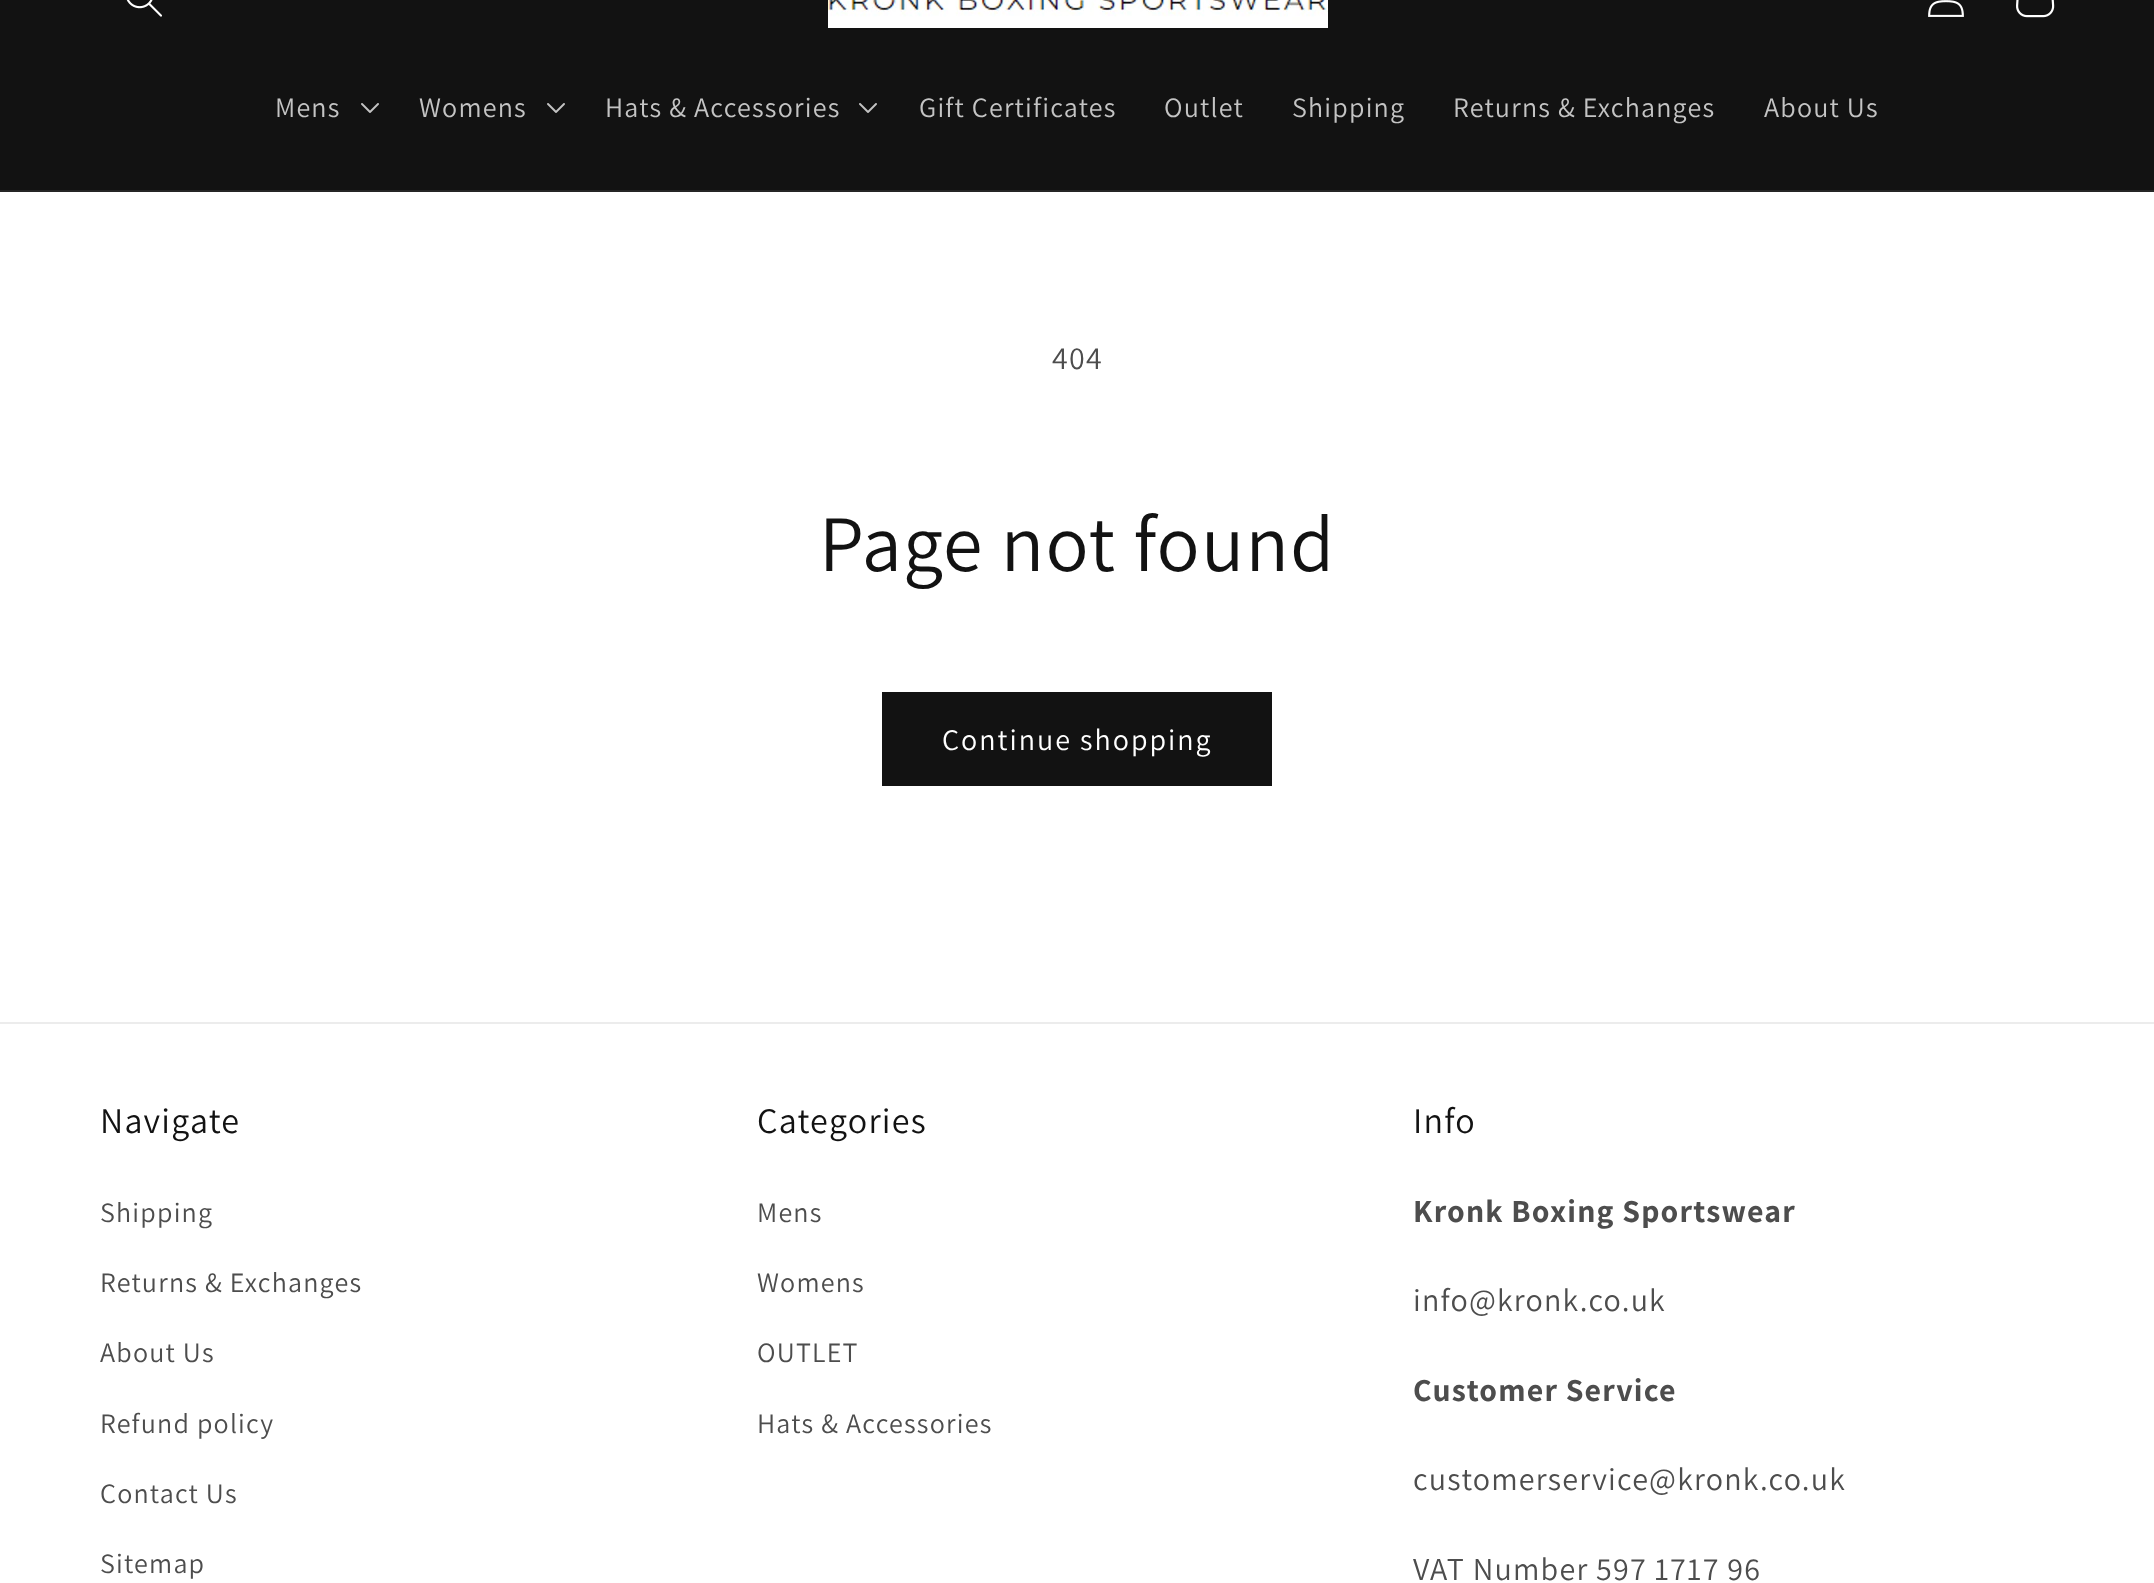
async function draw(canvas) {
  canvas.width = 2154;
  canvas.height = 1583;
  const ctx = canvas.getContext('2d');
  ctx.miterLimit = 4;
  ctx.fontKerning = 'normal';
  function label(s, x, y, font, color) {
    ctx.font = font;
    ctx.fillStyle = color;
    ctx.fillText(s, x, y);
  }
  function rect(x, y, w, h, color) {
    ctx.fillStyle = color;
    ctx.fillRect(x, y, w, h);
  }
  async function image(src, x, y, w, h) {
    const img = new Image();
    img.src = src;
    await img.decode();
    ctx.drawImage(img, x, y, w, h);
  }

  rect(0, 0, 2154, 1583, '#fff');
  rect(0, 0, 2154, 190, '#121212');
  rect(0, 190, 2154, 2, '#252525');
  await image('assets/img1.png', 126, 0, 36, 17);
  await image('assets/img2.png', 828, 0, 500, 28);
  await image('assets/img3.png', 1928, 0, 36, 17);
  await image('assets/img4.png', 2016, 0, 39, 18);
  ctx.letterSpacing = '1.2px';
  label('Mens', 275, 117, '28px Assistant', '#c4c4c4');
  await image('assets/img5.png', 361, 103, 18, 10);
  label('Womens', 419, 117, '28px Assistant', '#c4c4c4');
  await image('assets/img5.png', 547, 103, 18, 10);
  label('Hats & Accessories', 605, 117, '28px Assistant', '#c4c4c4');
  await image('assets/img5.png', 859, 103, 18, 10);
  label('Gift Certificates', 919, 117, '28px Assistant', '#c4c4c4');
  label('Outlet', 1164, 117, '28px Assistant', '#c4c4c4');
  label('Shipping', 1292, 117, '28px Assistant', '#c4c4c4');
  label('Returns & Exchanges', 1453, 117, '28px Assistant', '#c4c4c4');
  label('About Us', 1764, 117, '28px Assistant', '#c4c4c4');
  label('404', 1052, 369, '32px Assistant', '#4d4d4d');
  label('Page not found', 819, 571, '80px Assistant', '#121212');
  rect(882, 692, 390, 94, '#121212');
  ctx.letterSpacing = '2px';
  label('Continue shopping', 942, 750, '30px Assistant', '#fff');
  rect(0, 1022, 2154, 2, '#ececec');
  ctx.letterSpacing = '1.2px';
  label('Navigate', 100, 1133, '36px Assistant', '#121212');
  label('Shipping', 100, 1222, '28px Assistant', '#4d4d4d');
  label('Returns & Exchanges', 100, 1292, '28px Assistant', '#4d4d4d');
  label('About Us', 100, 1362, '28px Assistant', '#4d4d4d');
  label('Refund policy', 100, 1433, '28px Assistant', '#4d4d4d');
  label('Contact Us', 100, 1503, '28px Assistant', '#4d4d4d');
  label('Sitemap', 100, 1573, '28px Assistant', '#4d4d4d');
  label('Categories', 757, 1133, '36px Assistant', '#121212');
  label('Mens', 757, 1222, '28px Assistant', '#4d4d4d');
  label('Womens', 757, 1292, '28px Assistant', '#4d4d4d');
  label('OUTLET', 757, 1362, '28px Assistant', '#4d4d4d');
  label('Hats & Accessories', 757, 1433, '28px Assistant', '#4d4d4d');
  label('Info', 1413, 1133, '36px Assistant', '#121212');
  label('Kronk Boxing Sportswear', 1413, 1222, 'bold 32px Assistant', '#4d4d4d');
  label('info@kronk.co.uk', 1413, 1311, '32px Assistant', '#4d4d4d');
  label('Customer Service', 1413, 1401, 'bold 32px Assistant', '#4d4d4d');
  label('customerservice@kronk.co.uk', 1413, 1490, '32px Assistant', '#4d4d4d');
  label('VAT Number 597 1717 96', 1413, 1580, '32px Assistant', '#4d4d4d');
}

draw(document.querySelector('canvas'));
